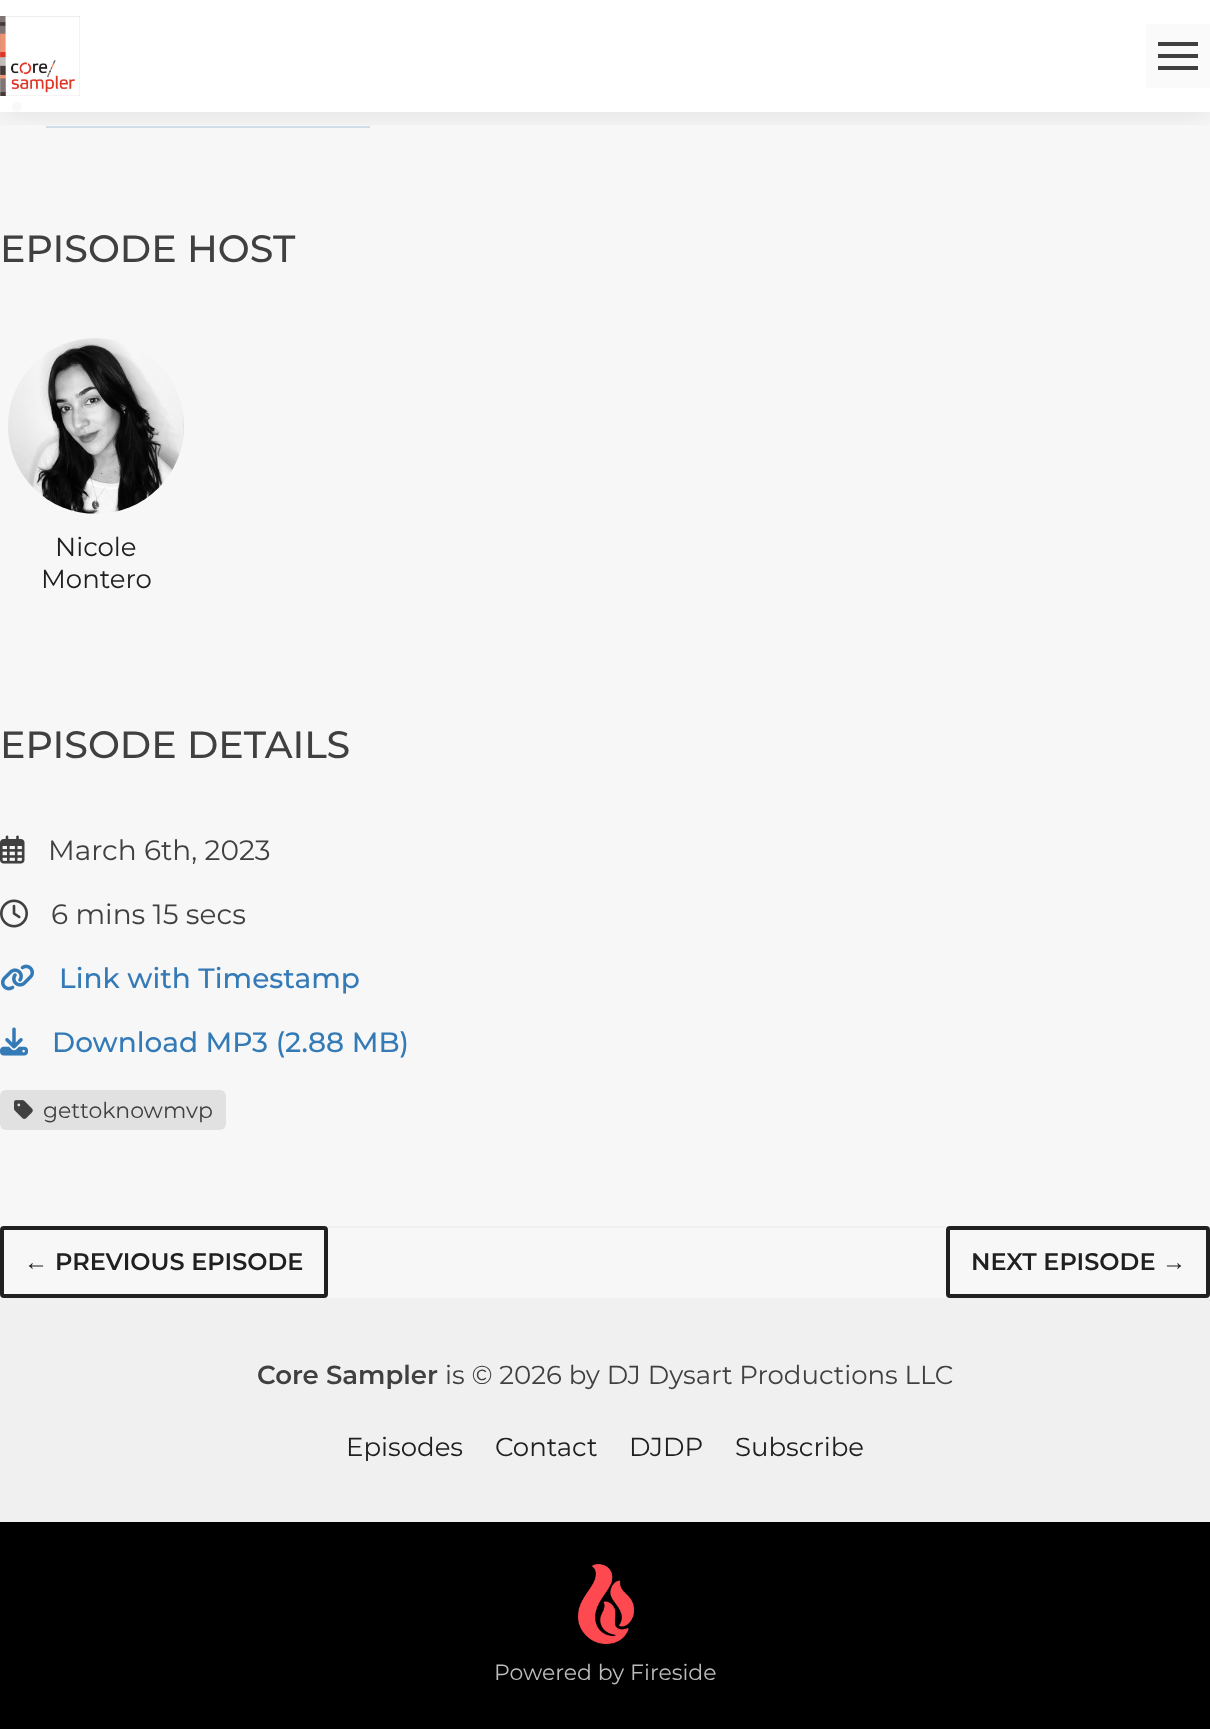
async function draw(canvas) {
  canvas.width = 1210;
  canvas.height = 1729;
  const ctx = canvas.getContext('2d');
  ctx.miterLimit = 4;
  ctx.fontKerning = 'normal';
  function label(s, x, y, font, color) {
    ctx.font = font;
    ctx.fillStyle = color;
    ctx.fillText(s, x, y);
  }
  function rect(x, y, w, h, color) {
    ctx.fillStyle = color;
    ctx.fillRect(x, y, w, h);
  }
  function roundedRect(x, y, w, h, r, color) {
    ctx.fillStyle = color;
    ctx.beginPath();
    ctx.roundRect(x, y, w, h, r);
    ctx.fill();
  }
  async function image(src, x, y, w, h) {
    const img = new Image();
    img.src = src;
    await img.decode();
    ctx.drawImage(img, x, y, w, h);
  }

  rect(0, 0, 1210, 1729, '#f7f7f7');
  ctx.fillStyle = '#404040';
  ctx.beginPath();
  ctx.arc(17, 107, 5, 0, 2 * Math.PI);
  ctx.fill();
  rect(46, 126, 324, 2, '#d0deea');
  ctx.save();
  ctx.beginPath();
  ctx.rect(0, 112, 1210, 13);
  ctx.clip();
  ctx.fillStyle = '#0000001a';
  ctx.filter = 'blur(16px)';
  ctx.beginPath();
  ctx.rect(0, 0, 1210, 112);
  ctx.fill();
  ctx.filter = 'none';
  ctx.restore();
  rect(0, 0, 1210, 112, '#fffffff7');
  await image('assets/img1.png', 0, 16, 80, 80);
  rect(1146, 24, 64, 64, '#fafafa');
  rect(1158, 42, 40, 4, '#404040');
  rect(1158, 54, 40, 4, '#404040');
  rect(1158, 66, 40, 4, '#404040');
  label('EPISODE HOST', 0, 262, '500 38px Montserrat', '#404040');
  await image('assets/img2.png', 8, 338, 176, 176);
  label('Nicole', 55, 556, '26px Montserrat', '#202020');
  label('Montero', 41, 588, '26px Montserrat', '#202020');
  label('EPISODE DETAILS', 0, 758, '500 38px Montserrat', '#404040');
  await image('assets/img3.png', 0, 835, 25, 29);
  label('March 6th, 2023', 48, 860, '28px Montserrat', '#404040');
  await image('assets/img4.png', 0, 899, 28, 29);
  label('6 mins 15 secs', 51, 924, '28px Montserrat', '#404040');
  await image('assets/img5.png', 1, 964, 33, 27);
  label('Link with Timestamp', 59, 988, '500 28px Montserrat', '#337ab7');
  await image('assets/img6.png', 0, 1027, 28, 29);
  label('Download MP3 (2.88 MB)', 52, 1052, '500 28px Montserrat', '#337ab7');
  roundedRect(0, 1090, 226, 40, 6, '#e1e1e1');
  await image('assets/img7.png', 14, 1100, 19, 19);
  label('gettoknowmvp', 43, 1118, '22px Montserrat', '#404040');
  rect(0, 1226, 1210, 2, '#f0f0f0');
  ctx.beginPath();
  ctx.roundRect(2, 1228, 324, 68, 2);
  ctx.strokeStyle = '#202020';
  ctx.lineWidth = 4;
  ctx.stroke();
  label('←', 24, 1270, 'bold 24px Liberation Serif', '#202020');
  label('PREVIOUS EPISODE', 55, 1270, '600 24px Montserrat', '#202020');
  ctx.beginPath();
  ctx.roundRect(948, 1228, 260, 68, 2);
  ctx.stroke();
  label('NEXT EPISODE', 971, 1270, '600 24px Montserrat', '#202020');
  label('→', 1162, 1270, 'bold 24px Liberation Serif', '#202020');
  rect(0, 1298, 1210, 224, '#f0f0f0');
  label('Core Sampler', 257, 1384, '600 26px Montserrat', '#404040');
  label('is © 2026 by DJ Dysart Productions LLC', 445, 1384, '26px Montserrat', '#404040');
  label('Episodes', 346, 1456, '26px Montserrat', '#202020');
  label('Contact', 495, 1456, '26px Montserrat', '#202020');
  label('DJDP', 629, 1456, '26px Montserrat', '#202020');
  label('Subscribe', 735, 1456, '26px Montserrat', '#202020');
  rect(0, 1522, 1210, 207, '#000');
  await image('assets/img8.png', 578, 1564, 56, 80);
  label('Powered by Fireside', 494, 1680, '22px Montserrat', '#bbb');
}

draw(document.querySelector('canvas'));
